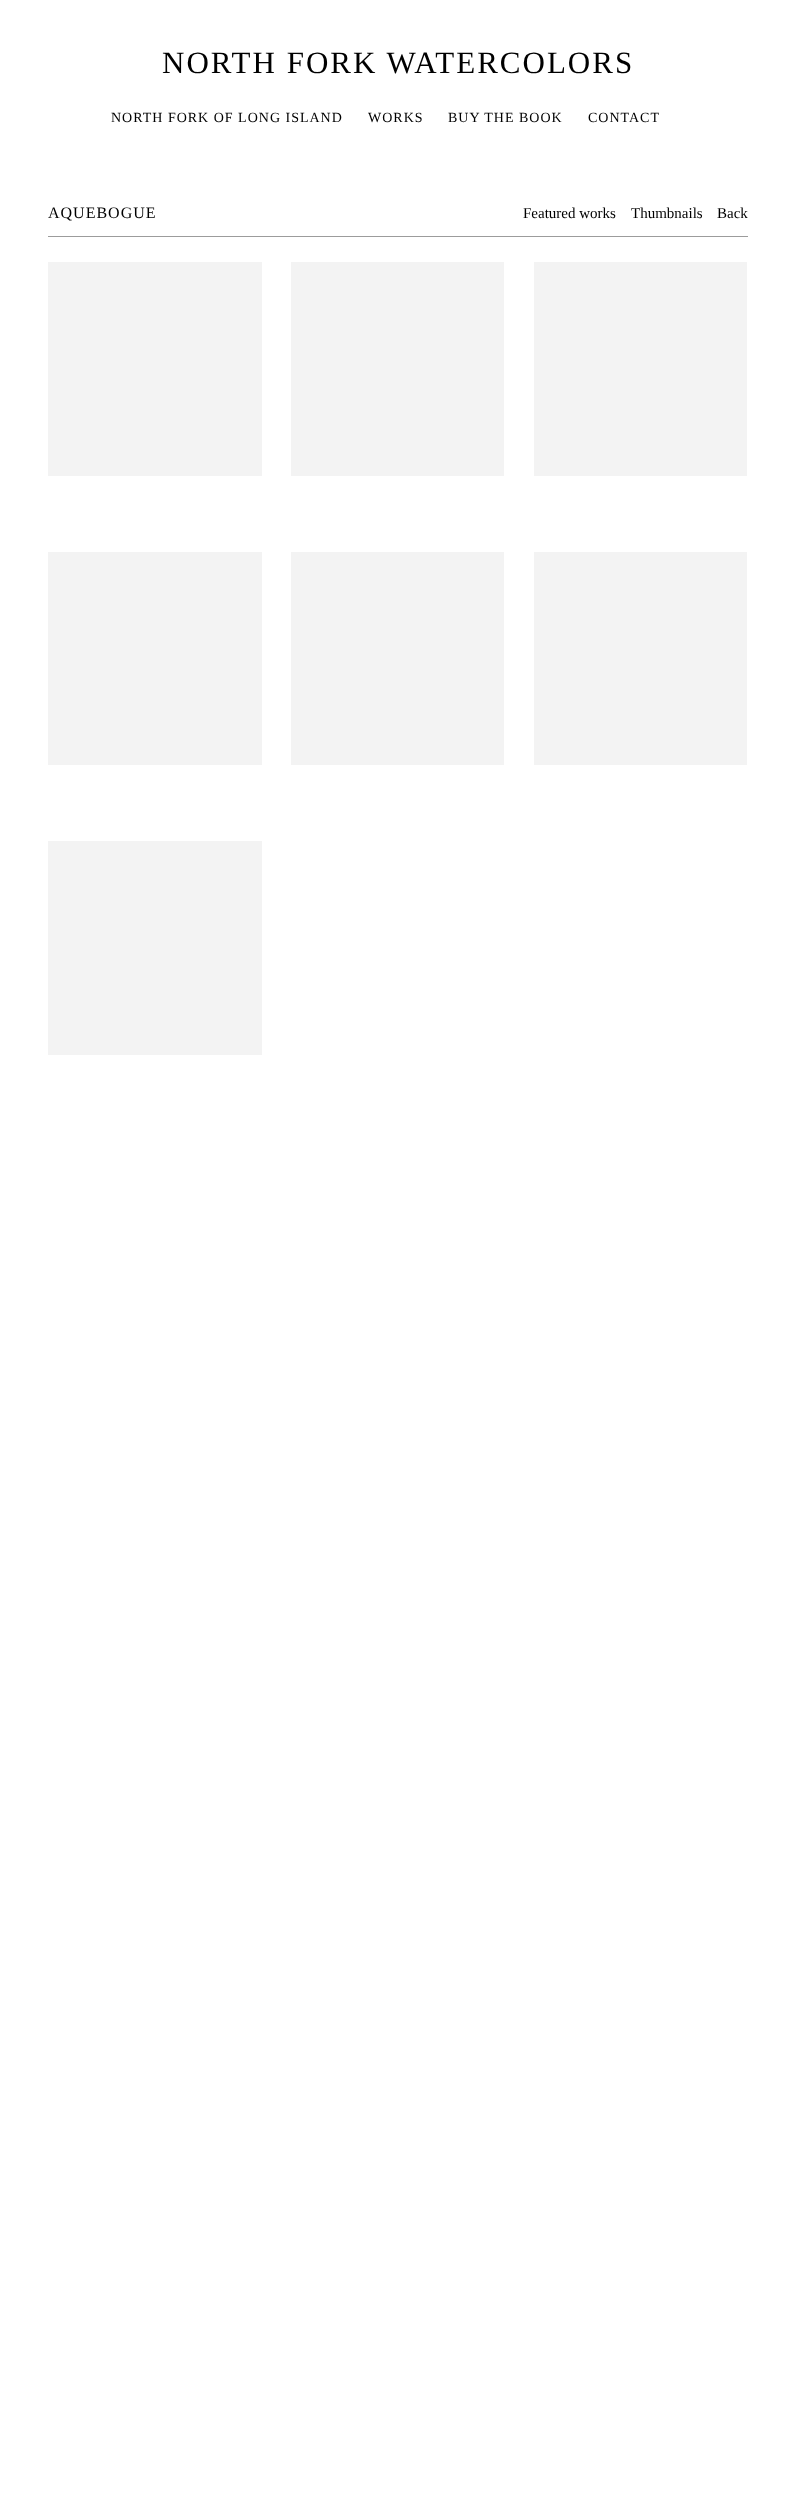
async function draw(canvas) {
  canvas.width = 796;
  canvas.height = 2520;
  const ctx = canvas.getContext('2d');
  ctx.miterLimit = 4;
  ctx.fontKerning = 'normal';
  function label(s, x, y, font, color) {
    ctx.font = font;
    ctx.fillStyle = color;
    ctx.fillText(s, x, y);
  }
  function rect(x, y, w, h, color) {
    ctx.fillStyle = color;
    ctx.fillRect(x, y, w, h);
  }

  rect(0, 0, 796, 2520, '#fff');
  ctx.letterSpacing = '2px';
  label('NORTH FORK WATERCOLORS', 162, 73, '31px Liberation Serif', '#000');
  ctx.letterSpacing = '1px';
  label('NORTH FORK OF LONG ISLAND', 111, 122, '14px Liberation Serif', '#000');
  label('WORKS', 368, 122, '14px Liberation Serif', '#000');
  label('BUY THE BOOK', 448, 122, '14px Liberation Serif', '#000');
  label('CONTACT', 588, 122, '14px Liberation Serif', '#000');
  rect(48, 236, 700, 1, '#9c9c9c');
  label('AQUEBOGUE', 48, 218, '16px Liberation Serif', '#000');
  ctx.letterSpacing = '0px';
  label('Featured works', 523, 218, '15px Liberation Serif', '#000');
  label('Thumbnails', 631, 218, '15px Liberation Serif', '#000');
  label('Back', 717, 218, '15px Liberation Serif', '#000');
  rect(48, 262, 214, 214, '#f3f3f3');
  rect(291, 262, 213, 214, '#f3f3f3');
  rect(534, 262, 213, 214, '#f3f3f3');
  rect(48, 552, 214, 213, '#f3f3f3');
  rect(291, 552, 213, 213, '#f3f3f3');
  rect(534, 552, 213, 213, '#f3f3f3');
  rect(48, 841, 214, 214, '#f3f3f3');
}

draw(document.querySelector('canvas'));
